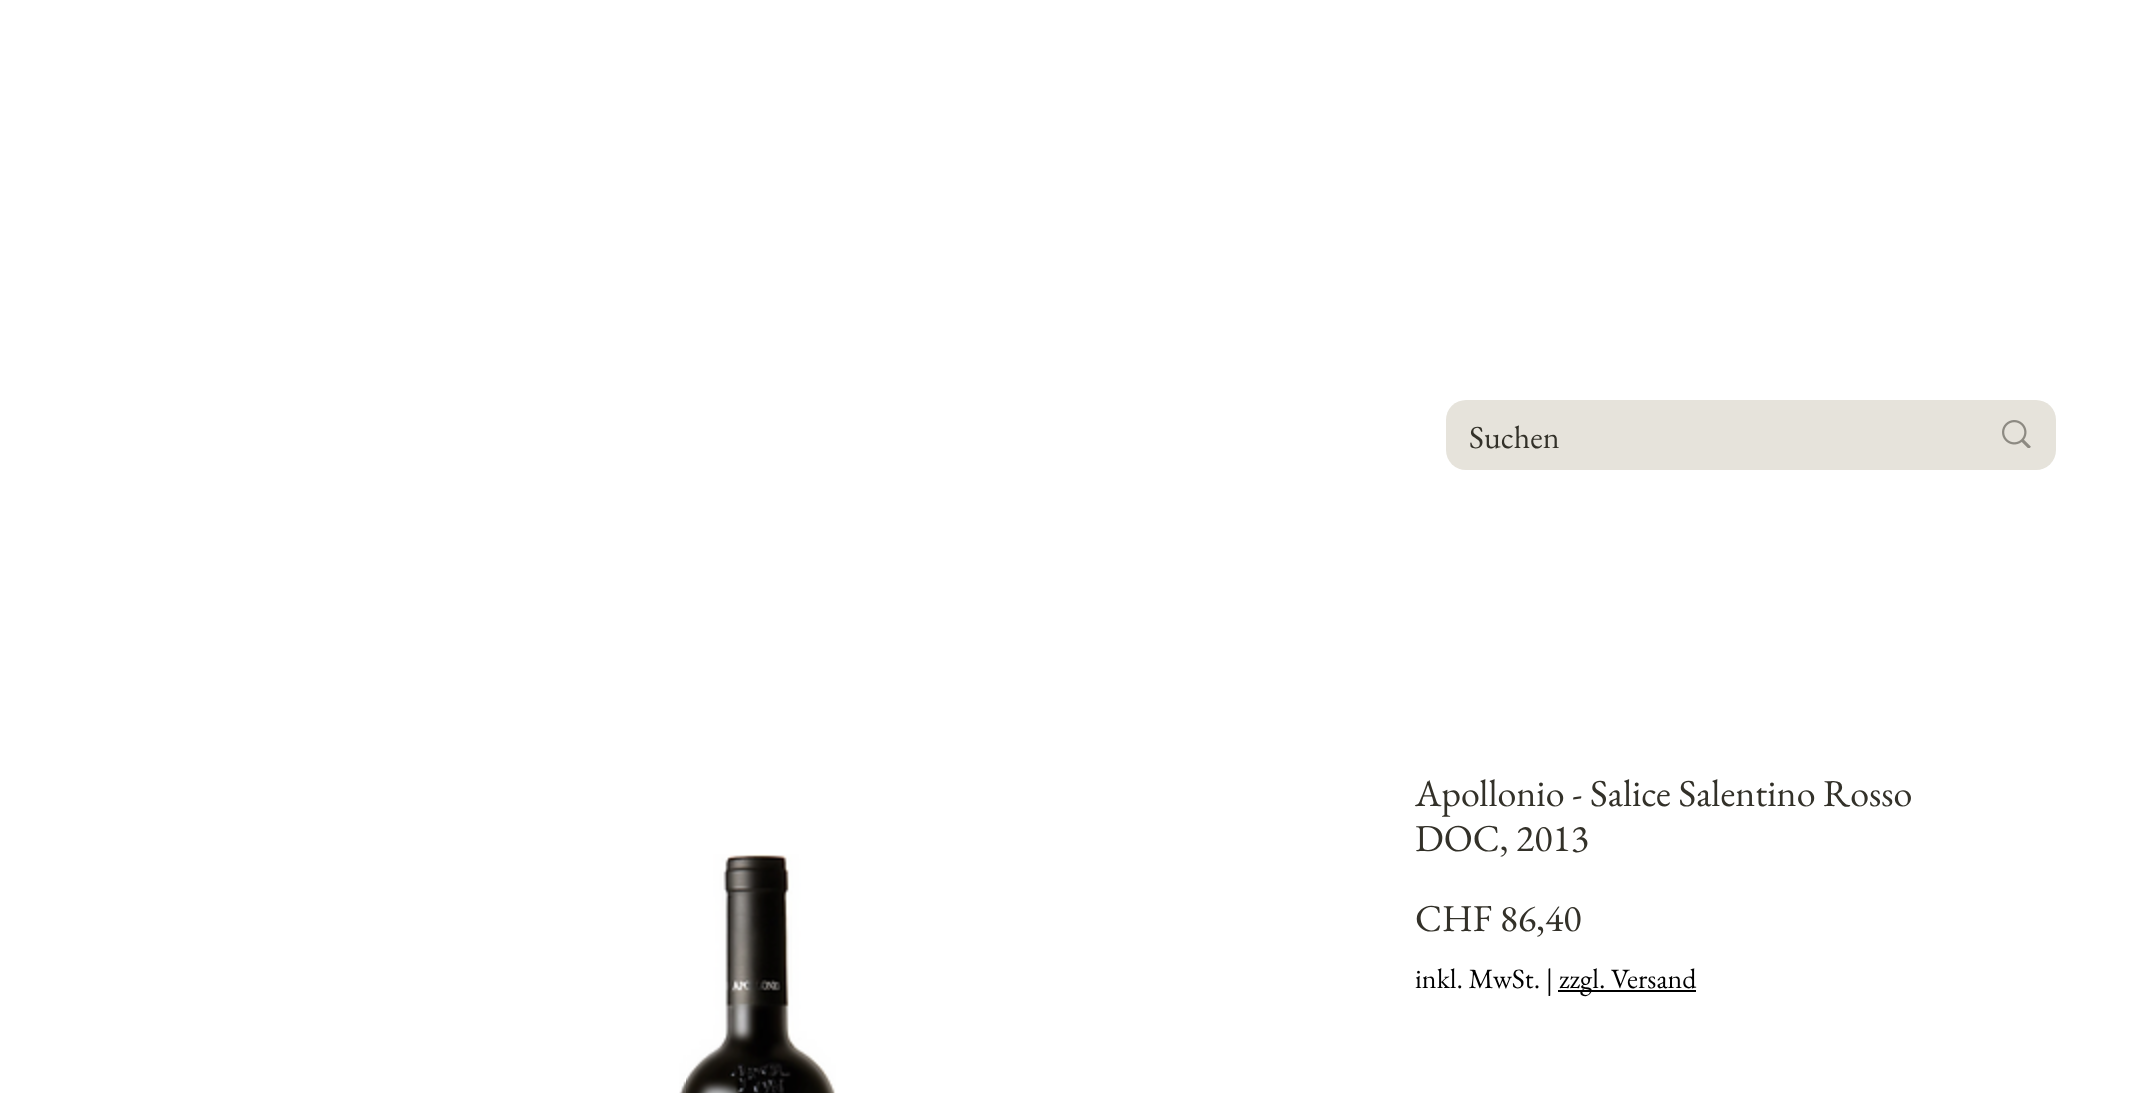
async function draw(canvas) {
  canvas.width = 2149;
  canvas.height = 1093;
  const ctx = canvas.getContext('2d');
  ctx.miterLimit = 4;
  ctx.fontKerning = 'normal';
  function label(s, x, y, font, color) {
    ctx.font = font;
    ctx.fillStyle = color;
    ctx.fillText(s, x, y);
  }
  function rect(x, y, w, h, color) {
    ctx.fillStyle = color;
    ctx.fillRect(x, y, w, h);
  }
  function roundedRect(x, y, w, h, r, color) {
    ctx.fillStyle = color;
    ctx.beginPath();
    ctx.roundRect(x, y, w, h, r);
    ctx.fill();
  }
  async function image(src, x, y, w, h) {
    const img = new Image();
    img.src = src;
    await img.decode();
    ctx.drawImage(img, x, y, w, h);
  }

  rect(0, 0, 2149, 1093, '#fff');
  roundedRect(1446, 400, 610, 70, 20, '#e6e3db');
  label('Suchen', 1469, 448, '32px EB Garamond', '#333129');
  await image('assets/img1.png', 2002, 420, 29, 28);
  await image('assets/img2.png', 679, 854, 157, 239);
  label('Apollonio - Salice Salentino Rosso', 1415, 806, '38px EB Garamond', '#333129');
  label('DOC, 2013', 1415, 851, '38px EB Garamond', '#333129');
  label('CHF 86,40', 1415, 931, '38px EB Garamond', '#333129');
  label('inkl. MwSt. |', 1415, 988, '28px EB Garamond', '#000');
  rect(1558, 990, 138, 2, '#000');
  label('zzgl. Versand', 1559, 988, '28px EB Garamond', '#000');
}

draw(document.querySelector('canvas'));
